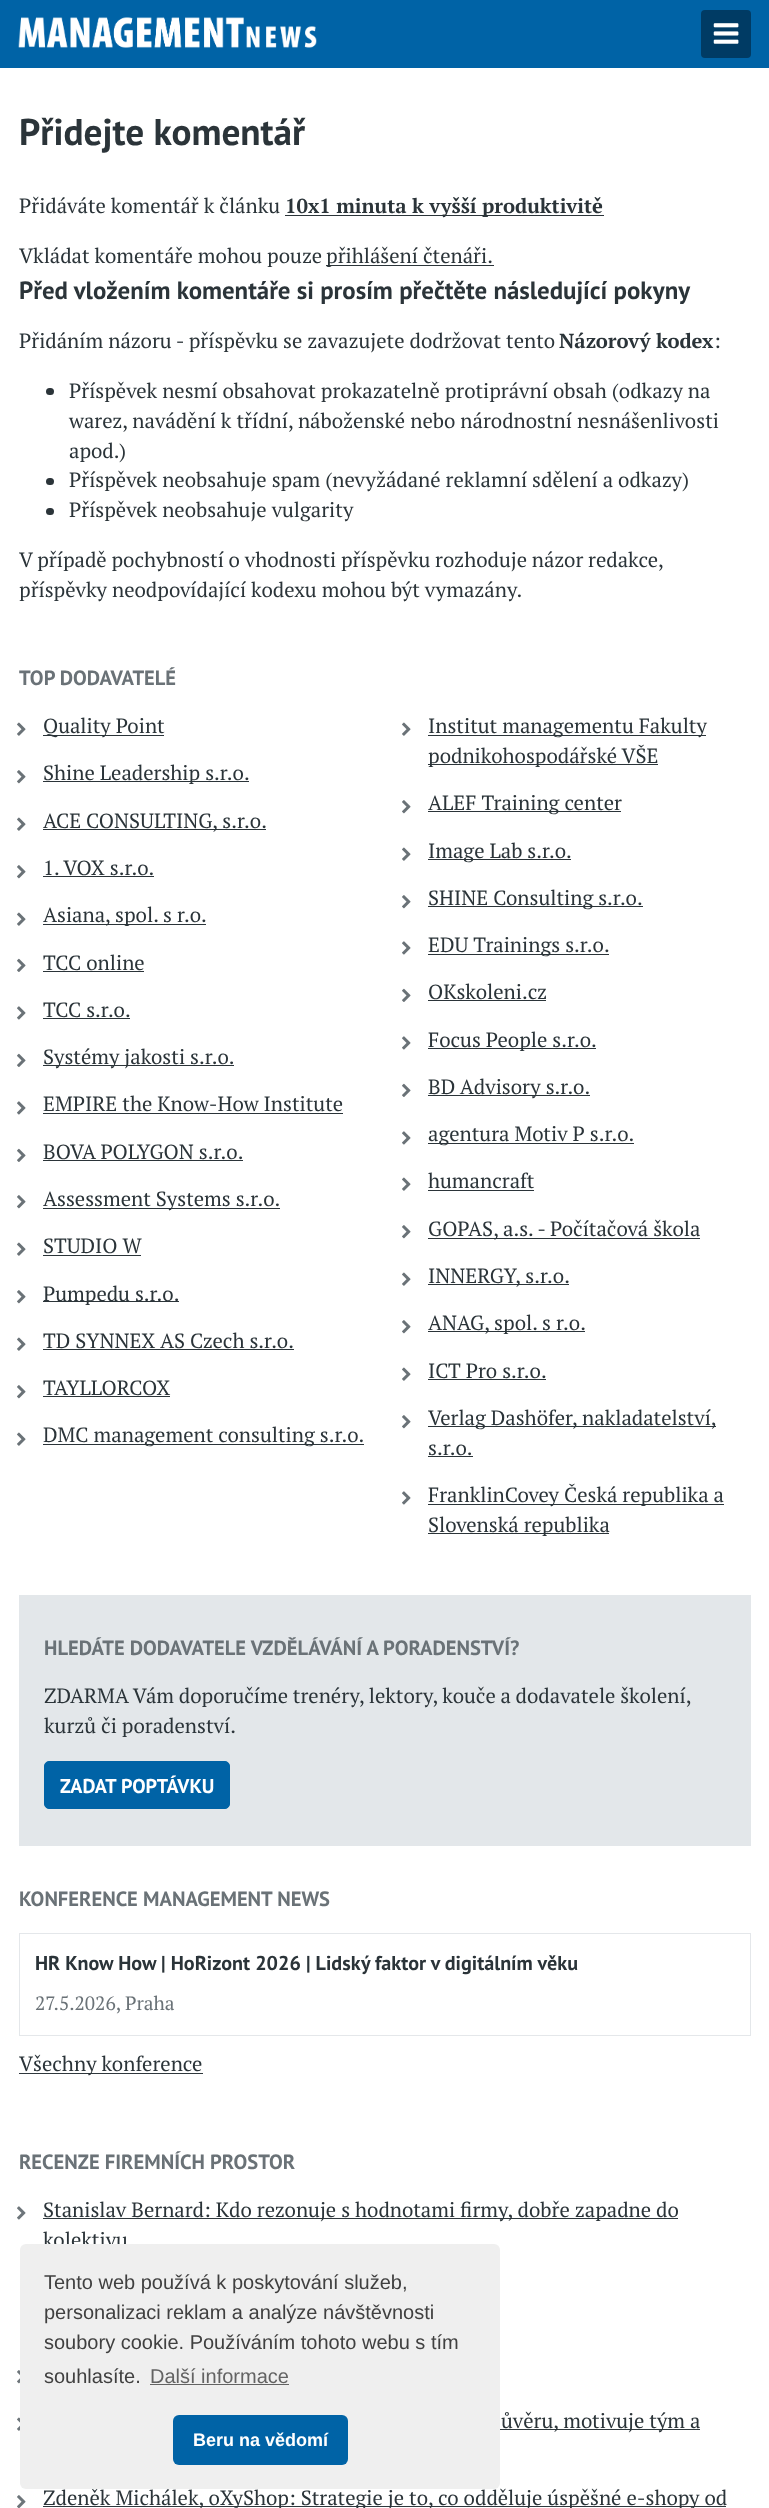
async function draw(canvas) {
  canvas.width = 769;
  canvas.height = 2508;
  const ctx = canvas.getContext('2d');
  ctx.miterLimit = 4;
  ctx.fontKerning = 'normal';
  function label(s, x, y, font, color) {
    ctx.font = font;
    ctx.fillStyle = color;
    ctx.fillText(s, x, y);
  }
  function rect(x, y, w, h, color) {
    ctx.fillStyle = color;
    ctx.fillRect(x, y, w, h);
  }
  function roundedRect(x, y, w, h, r, color) {
    ctx.fillStyle = color;
    ctx.beginPath();
    ctx.roundRect(x, y, w, h, r);
    ctx.fill();
  }
  async function image(src, x, y, w, h) {
    const img = new Image();
    img.src = src;
    await img.decode();
    ctx.drawImage(img, x, y, w, h);
  }

  rect(0, 0, 769, 2508, '#fff');
  rect(0, 0, 769, 68, '#0063a6');
  await image('assets/img1.png', 18, 17, 299, 31);
  roundedRect(701, 10, 50, 48, 4, '#003b64');
  await image('assets/img2.png', 713, 23, 26, 21);
  label('Přidejte komentář', 19, 145, 'bold 37.25px PT Sans', '#2b3439');
  label('Přidáváte komentář k článku', 19, 213, '20.55px PT Serif', '#2b3439');
  rect(285, 215, 319, 1, '#2b3439');
  label('10x1 minuta k vyšší produktivitě', 285, 213, 'bold 20.25px PT Serif', '#2b3439');
  label('Vkládat komentáře mohou pouze', 19, 263, '20.55px PT Serif', '#2b3439');
  rect(326, 265, 168, 1, '#2b3439');
  label('přihlášení čtenáři.', 326, 263, '20.55px PT Serif', '#2b3439');
  label('Před vložením komentáře si prosím přečtěte následující pokyny', 19, 299, 'bold 24.85px PT Sans', '#2b3439');
  label('Přidáním názoru - příspěvku se zavazujete dodržovat tento', 19, 348, '20.55px PT Serif', '#2b3439');
  label('Názorový kodex', 559, 348, 'bold 20.25px PT Serif', '#2b3439');
  label(':', 714, 348, '20.55px PT Serif', '#2b3439');
  roundedRect(46, 388, 8, 7, 3.5, '#2b3439');
  label('Příspěvek nesmí obsahovat prokazatelně protiprávní obsah (odkazy na', 69, 398, '20.55px PT Serif', '#2b3439');
  label('warez, navádění k třídní, náboženské nebo národnostní nesnášenlivosti', 69, 428, '20.55px PT Serif', '#2b3439');
  label('apod.)', 69, 458, '20.55px PT Serif', '#2b3439');
  roundedRect(46, 478, 8, 7, 3.5, '#2b3439');
  label('Příspěvek neobsahuje spam (nevyžádané reklamní sdělení a odkazy)', 69, 487, '20.55px PT Serif', '#2b3439');
  roundedRect(46, 508, 8, 7, 3.5, '#2b3439');
  label('Příspěvek neobsahuje vulgarity', 69, 517, '20.55px PT Serif', '#2b3439');
  ctx.wordSpacing = '-0.25px';
  label('V případě pochybností o vhodnosti příspěvku rozhoduje názor redakce,', 19, 567, '20.55px PT Serif', '#2b3439');
  ctx.wordSpacing = '0px';
  label('příspěvky neodpovídající kodexu mohou být vymazány.', 19, 597, '20.55px PT Serif', '#2b3439');
  label('TOP DODAVATELÉ', 19, 685, 'bold 20.55px PT Sans', '#6a7277');
  await image('assets/img3.png', 17, 722, 9, 14);
  rect(43, 735, 121, 1, '#2b3439');
  label('Quality Point', 43, 733, '20.55px PT Serif', '#2b3439');
  await image('assets/img4.png', 17, 770, 9, 14);
  rect(43, 781, 206, 1, '#2b3439');
  label('Shine Leadership s.r.o.', 43, 780, '20.55px PT Serif', '#2b3439');
  await image('assets/img3.png', 17, 817, 9, 14);
  rect(43, 829, 223, 1, '#2b3439');
  label('ACE CONSULTING, s.r.o.', 43, 828, '20.55px PT Serif', '#2b3439');
  await image('assets/img4.png', 17, 865, 9, 14);
  label('1. VOX s.r.o.', 43, 875, '20.55px PT Serif', '#2b3439');
  rect(43, 876, 111, 1, '#2b3439');
  await image('assets/img3.png', 17, 912, 9, 14);
  rect(43, 924, 163, 1, '#2b3439');
  label('Asiana, spol. s r.o.', 43, 922, '20.55px PT Serif', '#2b3439');
  await image('assets/img5.png', 17, 958, 9, 14);
  label('TCC online', 43, 970, '20.55px PT Serif', '#2b3439');
  rect(43, 971, 101, 1, '#2b3439');
  await image('assets/img6.png', 17, 1006, 9, 14);
  label('TCC s.r.o.', 43, 1017, '20.55px PT Serif', '#2b3439');
  rect(43, 1018, 87, 1, '#2b3439');
  await image('assets/img5.png', 17, 1053, 9, 14);
  rect(43, 1065, 191, 1, '#2b3439');
  label('Systémy jakosti s.r.o.', 43, 1064, '20.55px PT Serif', '#2b3439');
  await image('assets/img6.png', 17, 1101, 9, 14);
  label('EMPIRE the Know-How Institute', 43, 1111, '20.55px PT Serif', '#2b3439');
  rect(43, 1113, 300, 1, '#2b3439');
  await image('assets/img5.png', 17, 1148, 9, 14);
  label('BOVA POLYGON s.r.o.', 43, 1159, '20.55px PT Serif', '#2b3439');
  rect(43, 1160, 200, 1, '#2b3439');
  await image('assets/img4.png', 17, 1195, 9, 14);
  rect(43, 1208, 237, 1, '#2b3439');
  label('Assessment Systems s.r.o.', 43, 1206, '20.55px PT Serif', '#2b3439');
  await image('assets/img3.png', 17, 1242, 9, 14);
  label('STUDIO W', 43, 1253, '20.55px PT Serif', '#2b3439');
  rect(43, 1255, 98, 1, '#2b3439');
  await image('assets/img4.png', 17, 1290, 9, 14);
  rect(43, 1301, 136, 1, '#2b3439');
  label('Pumpedu s.r.o.', 43, 1301, '20.55px PT Serif', '#2b3439');
  await image('assets/img3.png', 17, 1337, 9, 14);
  label('TD SYNNEX AS Czech s.r.o.', 43, 1348, '20.55px PT Serif', '#2b3439');
  rect(43, 1349, 251, 1, '#2b3439');
  await image('assets/img4.png', 17, 1385, 9, 14);
  label('TAYLLORCOX', 43, 1395, '20.55px PT Serif', '#2b3439');
  rect(43, 1396, 127, 1, '#2b3439');
  await image('assets/img3.png', 17, 1432, 9, 14);
  rect(43, 1444, 321, 1, '#2b3439');
  label('DMC management consulting s.r.o.', 43, 1442, '20.55px PT Serif', '#2b3439');
  await image('assets/img3.png', 402, 722, 9, 14);
  rect(428, 735, 278, 1, '#2b3439');
  label('Institut managementu Fakulty', 428, 733, '20.55px PT Serif', '#2b3439');
  rect(428, 764, 230, 1, '#2b3439');
  label('podnikohospodářské VŠE', 428, 763, '20.55px PT Serif', '#2b3439');
  await image('assets/img4.png', 402, 800, 9, 14);
  rect(428, 811, 193, 1, '#2b3439');
  label('ALEF Training center', 428, 810, '20.55px PT Serif', '#2b3439');
  await image('assets/img3.png', 402, 847, 9, 14);
  rect(428, 859, 143, 1, '#2b3439');
  label('Image Lab s.r.o.', 428, 858, '20.55px PT Serif', '#2b3439');
  await image('assets/img4.png', 402, 895, 9, 14);
  rect(428, 906, 215, 1, '#2b3439');
  label('SHINE Consulting s.r.o.', 428, 905, '20.55px PT Serif', '#2b3439');
  await image('assets/img6.png', 402, 941, 9, 14);
  rect(428, 954, 181, 1, '#2b3439');
  label('EDU Trainings s.r.o.', 428, 952, '20.55px PT Serif', '#2b3439');
  await image('assets/img5.png', 402, 988, 9, 14);
  label('OKskoleni.cz', 428, 999, '20.55px PT Serif', '#2b3439');
  rect(428, 1000, 118, 1, '#2b3439');
  await image('assets/img6.png', 402, 1036, 9, 14);
  rect(428, 1048, 168, 1, '#2b3439');
  label('Focus People s.r.o.', 428, 1047, '20.55px PT Serif', '#2b3439');
  await image('assets/img5.png', 402, 1083, 9, 14);
  rect(428, 1095, 162, 1, '#2b3439');
  label('BD Advisory s.r.o.', 428, 1094, '20.55px PT Serif', '#2b3439');
  await image('assets/img6.png', 402, 1131, 9, 14);
  rect(428, 1143, 206, 1, '#2b3439');
  label('agentura Motiv P s.r.o.', 428, 1141, '20.55px PT Serif', '#2b3439');
  await image('assets/img3.png', 402, 1177, 9, 14);
  label('humancraft', 428, 1188, '20.55px PT Serif', '#2b3439');
  rect(428, 1190, 106, 1, '#2b3439');
  await image('assets/img4.png', 402, 1225, 9, 14);
  rect(428, 1238, 272, 1, '#2b3439');
  label('GOPAS, a.s. - Počítačová škola', 428, 1236, '20.55px PT Serif', '#2b3439');
  await image('assets/img3.png', 402, 1272, 9, 14);
  rect(428, 1284, 141, 1, '#2b3439');
  label('INNERGY, s.r.o.', 428, 1283, '20.55px PT Serif', '#2b3439');
  await image('assets/img4.png', 402, 1320, 9, 14);
  rect(428, 1331, 157, 1, '#2b3439');
  label('ANAG, spol. s r.o.', 428, 1330, '20.55px PT Serif', '#2b3439');
  await image('assets/img3.png', 402, 1367, 9, 14);
  label('ICT Pro s.r.o.', 428, 1378, '20.55px PT Serif', '#2b3439');
  rect(428, 1379, 118, 1, '#2b3439');
  await image('assets/img4.png', 402, 1415, 9, 14);
  rect(428, 1426, 288, 1, '#2b3439');
  label('Verlag Dashöfer, nakladatelství,', 428, 1425, '20.55px PT Serif', '#2b3439');
  label('s.r.o.', 428, 1455, '20.55px PT Serif', '#2b3439');
  rect(428, 1456, 45, 1, '#2b3439');
  await image('assets/img6.png', 402, 1491, 9, 14);
  rect(428, 1504, 296, 1, '#2b3439');
  label('FranklinCovey Česká republika a', 428, 1502, '20.55px PT Serif', '#2b3439');
  rect(428, 1533, 181, 1, '#2b3439');
  label('Slovenská republika', 428, 1532, '20.55px PT Serif', '#2b3439');
  rect(19, 1595, 732, 251, '#e3e7ea');
  label('HLEDÁTE DODAVATELE VZDĚLÁVÁNÍ A PORADENSTVÍ?', 44, 1655, 'bold 20.55px PT Sans', '#6a7277');
  ctx.wordSpacing = '-0.25px';
  label('ZDARMA Vám doporučíme trenéry, lektory, kouče a dodavatele školení,', 44, 1703, '20.55px PT Serif', '#2b3439');
  ctx.wordSpacing = '0px';
  label('kurzů či poradenství.', 44, 1733, '20.55px PT Serif', '#2b3439');
  ctx.fillStyle = '#0063a6';
  ctx.beginPath();
  ctx.roundRect(44.5, 1761.5, 185, 47, 4.5);
  ctx.fill();
  ctx.strokeStyle = '#0063a6';
  ctx.stroke();
  label('ZADAT POPTÁVKU', 60, 1793, 'bold 20px PT Sans', '#fff');
  label('KONFERENCE MANAGEMENT NEWS', 19, 1906, 'bold 20.55px PT Sans', '#6a7277');
  ctx.strokeStyle = '#e4e7ea';
  ctx.strokeRect(19.5, 1933.5, 731, 102);
  label('HR Know How | HoRizont 2026 | Lidský faktor v digitálním věku', 35, 1970, 'bold 20.15px PT Sans', '#2b3439');
  label('27.5.2026, Praha', 35, 2010, '19.25px PT Serif', '#6a7277');
  rect(19, 2073, 184, 1, '#2f383d');
  label('Všechny konference', 19, 2071, '20.55px PT Serif', '#2b3439');
  label('RECENZE FIREMNÍCH PROSTOR', 19, 2169, 'bold 20.55px PT Sans', '#6a7277');
  await image('assets/img7.png', 17, 2206, 9, 14);
  rect(43, 2218, 635, 1, '#2f383d');
  label('Stanislav Bernard: Kdo rezonuje s hodnotami firmy, dobře zapadne do', 43, 2217, '20.55px PT Serif', '#2b3439');
  label('kolektivu', 43, 2247, '20.55px PT Serif', '#2b3439');
  await image('assets/img8.png', 17, 2370, 3, 14);
  await image('assets/img9.png', 17, 2417, 3, 14);
  rect(500, 2429, 200, 1, '#2f383d');
  label('ůvěru, motivuje tým a', 501, 2428, '20.55px PT Serif', '#2b3439');
  await image('assets/img10.png', 17, 2495, 9, 13);
  rect(43, 2506, 683, 1, '#2f383d');
  label('Zdeněk Michálek, oXyShop: Strategie je to, co odděluje úspěšné e-shopy od', 43, 2505, '20.55px PT Serif', '#2b3439');
  roundedRect(20, 2244, 480, 245, 6, '#efefef');
  label('Tento web používá k poskytování služeb,', 44, 2289, '20px Liberation Sans', '#404040');
  label('personalizaci reklam a analýze návštěvnosti', 44, 2319, '20px Liberation Sans', '#404040');
  label('soubory cookie. Používáním tohoto webu s tím', 44, 2349, '20px Liberation Sans', '#404040');
  label('souhlasíte.', 44, 2383, '20px Liberation Sans', '#404040');
  label('Další informace', 150, 2383, '20px Liberation Sans', '#636363');
  rect(150, 2384, 139, 1, '#636363');
  roundedRect(173, 2415, 175, 50, 6, '#0063a6');
  label('Beru na vědomí', 193, 2446, 'bold 18px Liberation Sans', '#fff');
}

draw(document.querySelector('canvas'));
